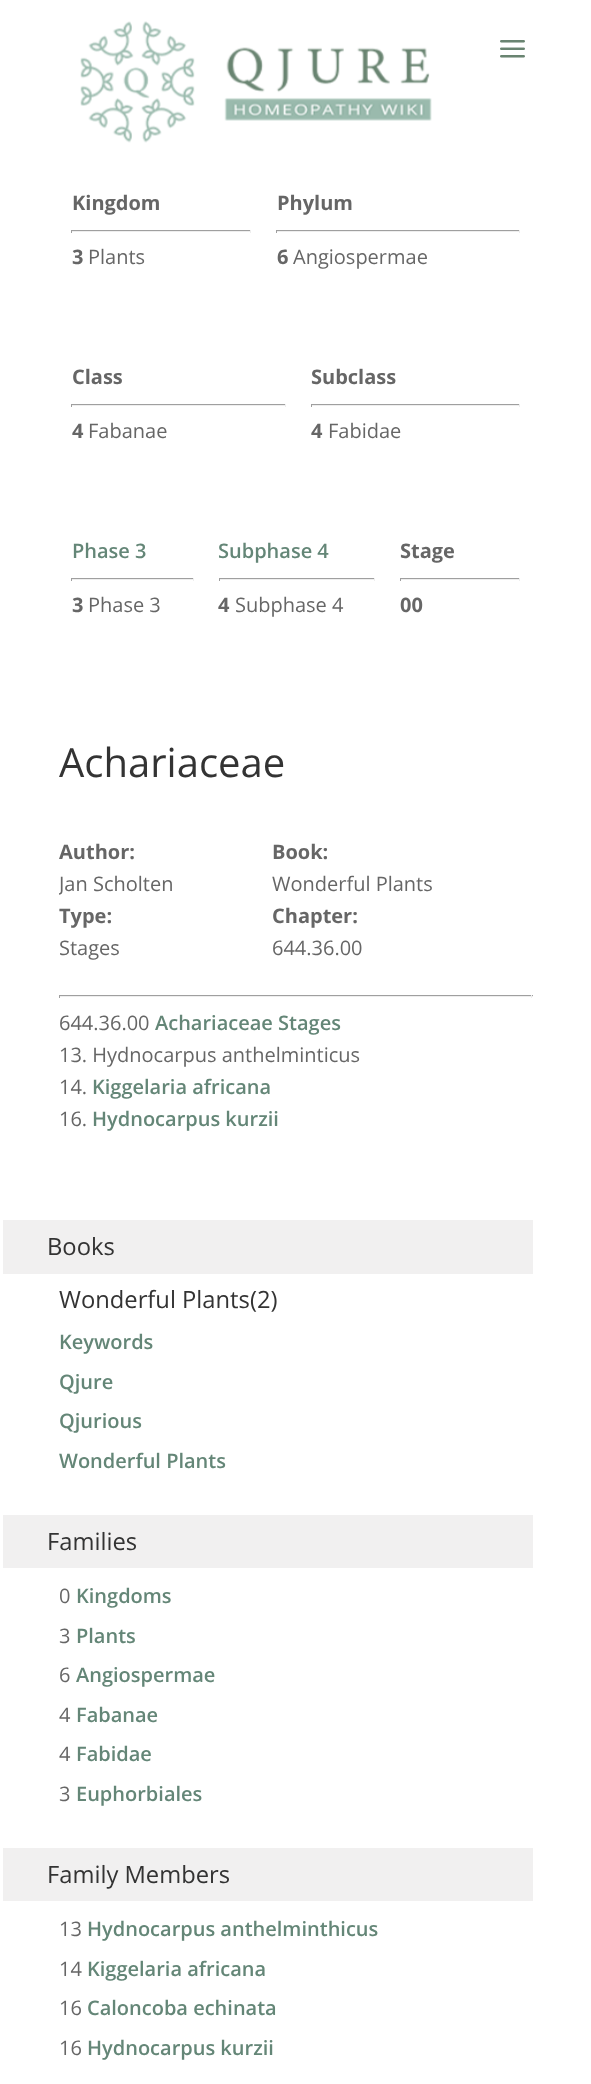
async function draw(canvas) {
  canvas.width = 591;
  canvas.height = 2084;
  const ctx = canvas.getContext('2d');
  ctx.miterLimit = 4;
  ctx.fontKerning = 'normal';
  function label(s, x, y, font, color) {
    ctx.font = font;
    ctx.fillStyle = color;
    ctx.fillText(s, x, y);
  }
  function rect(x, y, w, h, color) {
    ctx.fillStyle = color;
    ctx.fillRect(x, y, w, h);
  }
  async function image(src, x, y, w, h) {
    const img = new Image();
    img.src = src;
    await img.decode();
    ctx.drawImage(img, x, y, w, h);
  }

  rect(0, 0, 591, 2084, '#fff');
  await image('assets/img1.png', 80, 21, 352, 122);
  await image('assets/img2.png', 500, 40, 25, 18);
  label('Kingdom', 72, 210, 'bold 20px Open Sans', '#666');
  rect(71, 230, 180, 1, '#9f9f9f');
  rect(250, 230, 1, 3, '#eee');
  rect(71, 231, 180, 1, '#eee');
  rect(71, 230, 1, 3, '#9f9f9f');
  label('3', 72, 264, 'bold 20px Open Sans', '#666');
  label('Plants', 88, 264, '20px Open Sans', '#666');
  label('Phylum', 277, 210, 'bold 20px Open Sans', '#666');
  rect(276, 230, 244, 1, '#9f9f9f');
  rect(519, 230, 1, 3, '#eee');
  rect(276, 231, 244, 1, '#eee');
  rect(276, 230, 1, 3, '#9f9f9f');
  label('6', 277, 264, 'bold 20px Open Sans', '#666');
  label('Angiospermae', 293, 264, '20px Open Sans', '#666');
  label('Class', 72, 384, 'bold 20px Open Sans', '#666');
  rect(71, 404, 215, 1, '#9f9f9f');
  rect(285, 404, 1, 3, '#eee');
  rect(71, 405, 215, 1, '#eee');
  rect(71, 404, 1, 3, '#9f9f9f');
  label('4', 72, 438, 'bold 20px Open Sans', '#666');
  label('Fabanae', 88, 438, '20px Open Sans', '#666');
  label('Subclass', 311, 384, 'bold 20px Open Sans', '#666');
  rect(311, 404, 209, 1, '#9f9f9f');
  rect(519, 404, 1, 3, '#eee');
  rect(311, 405, 209, 1, '#eee');
  rect(311, 404, 1, 3, '#9f9f9f');
  label('4', 311, 438, 'bold 20px Open Sans', '#666');
  label('Fabidae', 328, 438, '20px Open Sans', '#666');
  label('Phase 3', 72, 558, '600 20px Open Sans', '#648677');
  rect(71, 578, 123, 1, '#9f9f9f');
  rect(193, 578, 1, 3, '#eee');
  rect(71, 579, 123, 1, '#eee');
  rect(71, 578, 1, 3, '#9f9f9f');
  label('3', 72, 612, 'bold 20px Open Sans', '#666');
  label('Phase 3', 88, 612, '20px Open Sans', '#666');
  label('Subphase 4', 218, 558, '600 20px Open Sans', '#648677');
  rect(219, 578, 156, 1, '#9f9f9f');
  rect(374, 578, 1, 3, '#eee');
  rect(219, 579, 156, 1, '#eee');
  rect(219, 578, 1, 3, '#9f9f9f');
  label('4', 218, 612, 'bold 20px Open Sans', '#666');
  label('Subphase 4', 235, 612, '20px Open Sans', '#666');
  label('Stage', 400, 558, 'bold 20px Open Sans', '#666');
  rect(400, 578, 120, 1, '#9f9f9f');
  rect(519, 578, 1, 3, '#eee');
  rect(400, 579, 120, 1, '#eee');
  rect(400, 578, 1, 3, '#9f9f9f');
  label('00', 400, 612, 'bold 20px Open Sans', '#666');
  label('Achariaceae', 59, 777, '40px Open Sans', '#333');
  label('Author:', 59, 859, 'bold 20px Open Sans', '#666');
  ctx.save();
  ctx.beginPath();
  ctx.rect(59, 836, 474, 128);
  ctx.clip();
  label('Jan Scholten', 59, 891, '20px Open Sans', '#666');
  ctx.restore();
  label('Book:', 272, 859, 'bold 20px Open Sans', '#666');
  label('Wonderful Plants', 272, 891, '20px Open Sans', '#666');
  label('Type:', 59, 923, 'bold 20px Open Sans', '#666');
  label('Stages', 59, 955, '20px Open Sans', '#666');
  label('Chapter:', 272, 923, 'bold 20px Open Sans', '#666');
  label('644.36.00', 272, 955, '20px Open Sans', '#666');
  rect(59, 995, 474, 1, '#9f9f9f');
  rect(531, 995, 1, 3, '#eee');
  rect(59, 996, 474, 1, '#eee');
  rect(59, 995, 1, 3, '#9f9f9f');
  label('644.36.00', 59, 1030, '20px Open Sans', '#666');
  label('Achariaceae Stages', 155, 1030, '600 20px Open Sans', '#648677');
  label('13. Hydnocarpus anthelminticus', 59, 1062, '20px Open Sans', '#666');
  label('14.', 59, 1094, '20px Open Sans', '#666');
  label('Kiggelaria africana', 92, 1094, '600 20px Open Sans', '#648677');
  label('16.', 59, 1126, '20px Open Sans', '#666');
  label('Hydnocarpus kurzii', 92, 1126, '600 20px Open Sans', '#648677');
  rect(3, 1220, 530, 54, '#f1f0f0');
  label('Books', 47, 1255, '23.75px Open Sans', '#333');
  label('Wonderful Plants(2)', 59, 1308, '23.75px Open Sans', '#333');
  label('Keywords', 59, 1349, '600 20px Open Sans', '#648677');
  label('Qjure', 59, 1389, '600 20px Open Sans', '#648677');
  label('Qjurious', 59, 1428, '600 20px Open Sans', '#648677');
  label('Wonderful Plants', 59, 1468, '600 20px Open Sans', '#648677');
  rect(3, 1515, 530, 53, '#f1f0f0');
  label('Families', 47, 1550, '23.75px Open Sans', '#333');
  label('0', 59, 1603, '20px Open Sans', '#666');
  label('Kingdoms', 76, 1603, '600 20px Open Sans', '#648677');
  label('3', 59, 1643, '20px Open Sans', '#666');
  label('Plants', 76, 1643, '600 20px Open Sans', '#648677');
  label('6', 59, 1682, '20px Open Sans', '#666');
  label('Angiospermae', 76, 1682, '600 20px Open Sans', '#648677');
  label('4', 59, 1722, '20px Open Sans', '#666');
  label('Fabanae', 76, 1722, '600 20px Open Sans', '#648677');
  label('4', 59, 1761, '20px Open Sans', '#666');
  label('Fabidae', 76, 1761, '600 20px Open Sans', '#648677');
  label('3', 59, 1801, '20px Open Sans', '#666');
  label('Euphorbiales', 76, 1801, '600 20px Open Sans', '#648677');
  rect(3, 1848, 530, 53, '#f1f0f0');
  label('Family Members', 47, 1883, '23.75px Open Sans', '#333');
  label('13', 59, 1936, '20px Open Sans', '#666');
  label('Hydnocarpus anthelminthicus', 87, 1936, '600 20px Open Sans', '#648677');
  label('14', 59, 1976, '20px Open Sans', '#666');
  label('Kiggelaria africana', 87, 1976, '600 20px Open Sans', '#648677');
  label('16', 59, 2015, '20px Open Sans', '#666');
  label('Caloncoba echinata', 87, 2015, '600 20px Open Sans', '#648677');
  label('16', 59, 2055, '20px Open Sans', '#666');
  label('Hydnocarpus kurzii', 87, 2055, '600 20px Open Sans', '#648677');
}

draw(document.querySelector('canvas'));
